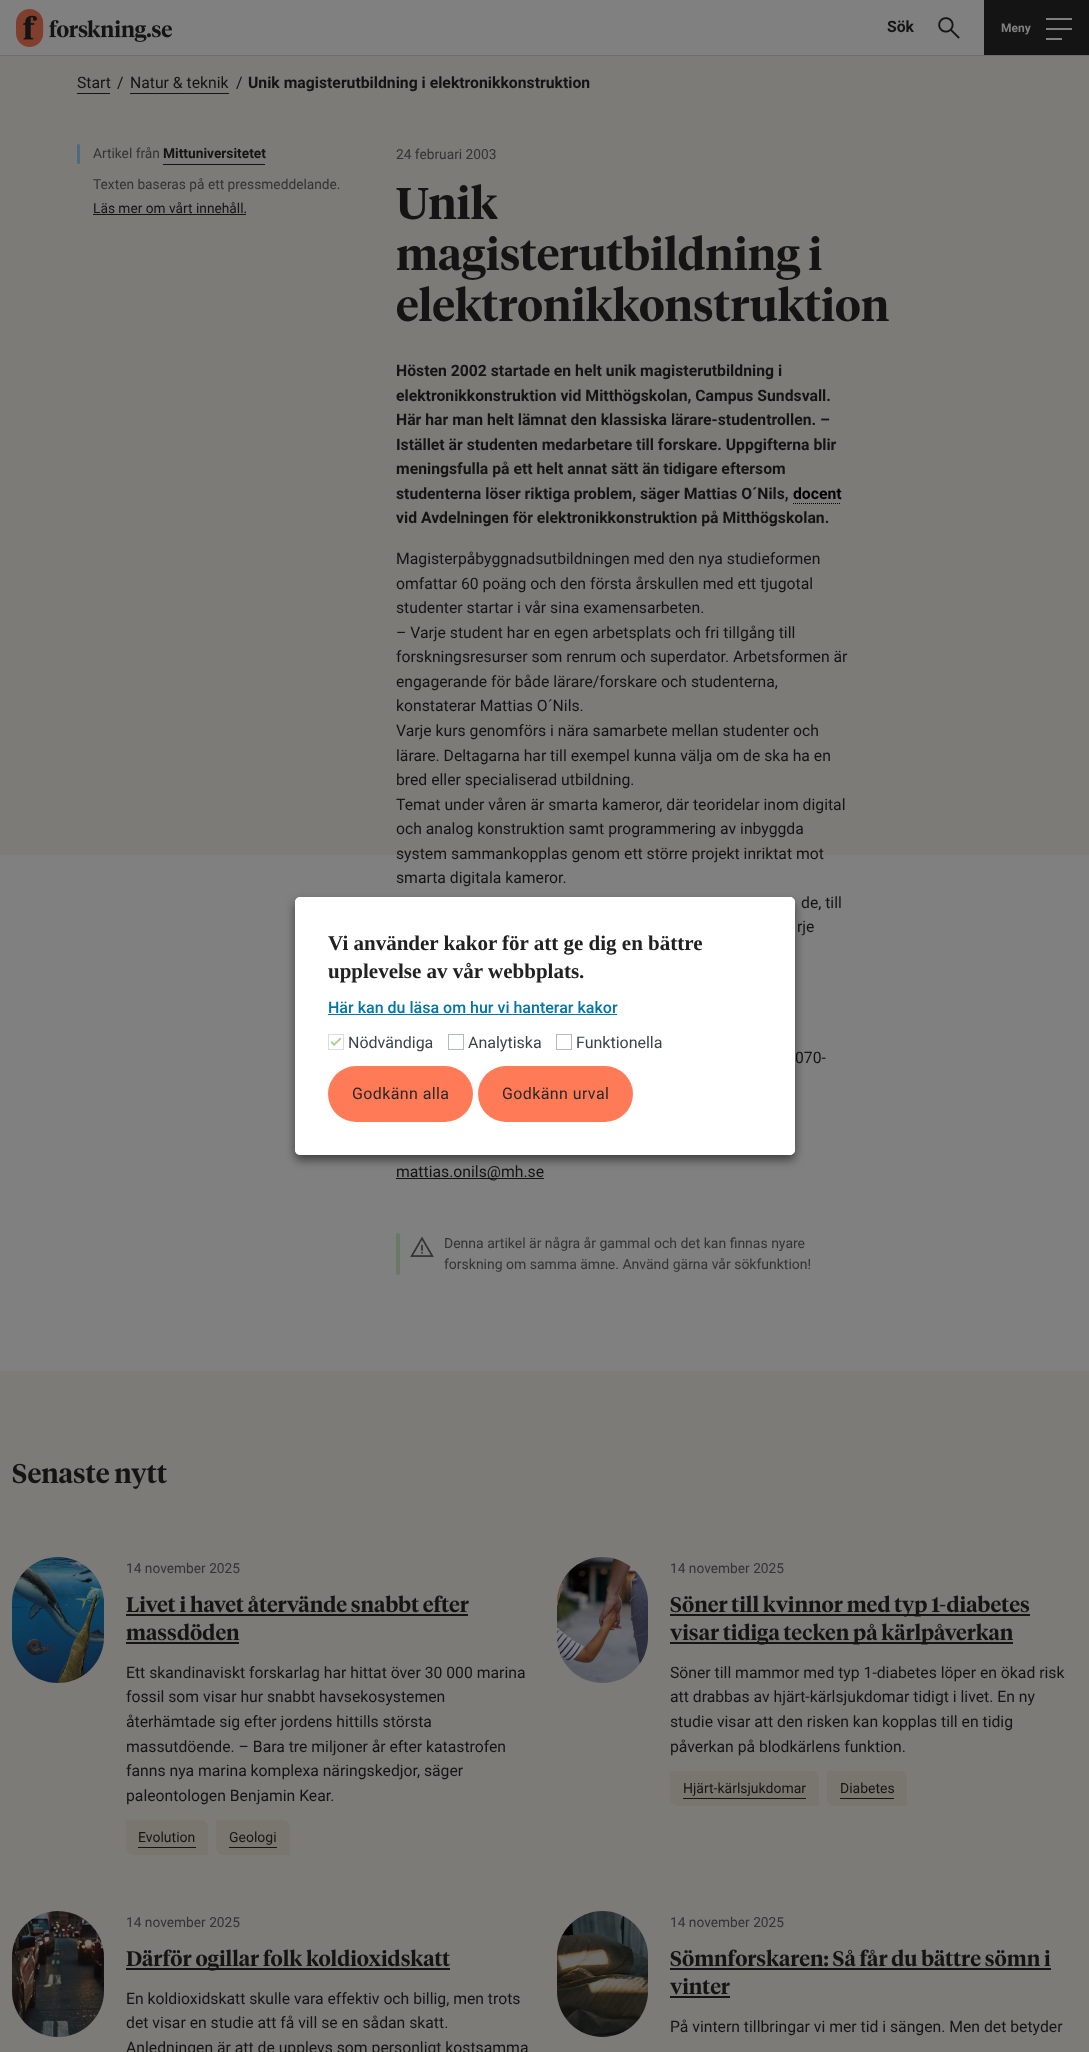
async function draw(canvas) {
  canvas.width = 1089;
  canvas.height = 2052;
  const ctx = canvas.getContext('2d');
  ctx.miterLimit = 4;
  ctx.fontKerning = 'normal';
  function label(s, x, y, font, color) {
    ctx.font = font;
    ctx.fillStyle = color;
    ctx.fillText(s, x, y);
  }
  function rect(x, y, w, h, color) {
    ctx.fillStyle = color;
    ctx.fillRect(x, y, w, h);
  }
  function roundedRect(x, y, w, h, r, color) {
    ctx.fillStyle = color;
    ctx.beginPath();
    ctx.roundRect(x, y, w, h, r);
    ctx.fill();
  }
  async function image(src, x, y, w, h) {
    const img = new Image();
    img.src = src;
    await img.decode();
    ctx.drawImage(img, x, y, w, h);
  }
  let path;

  rect(0, 0, 1089, 2052, '#808080');
  rect(0, 55, 1089, 1, '#6d6d6d');
  await image('assets/img1.png', 16, 9, 156, 38);
  label('Sök', 887, 32, 'bold 15.75px Roboto', '#141414');
  await image('assets/img2.png', 938, 17, 22, 22);
  rect(984, 0, 105, 55, '#141414');
  label('Meny', 1001, 32, 'bold 12px Roboto', '#808080');
  rect(1046, 18, 26, 2, '#808080');
  rect(1046, 28, 26, 2, '#808080');
  rect(1046, 38, 16, 2, '#808080');
  rect(0, 56, 1089, 799, '#7d7b77');
  label('Start', 77, 88, '15.75px Roboto', '#141414');
  rect(77, 93, 33, 1, '#141414');
  label('/', 117, 88, '15.75px Roboto', '#141414');
  label('Natur & teknik', 130, 88, '15.75px Roboto', '#141414');
  rect(130, 93, 99, 1, '#141414');
  label('/', 236, 88, '15.75px Roboto', '#141414');
  label('Unik magisterutbildning i elektronikkonstruktion', 248, 88, 'bold 15.75px Roboto', '#141414');
  roundedRect(77, 144, 3, 20, 1.5, '#4a6b80');
  label('Artikel från', 93, 158, '13.75px Roboto', '#333');
  label('Mittuniversitetet', 163, 158, 'bold 13.75px Roboto', '#141414');
  rect(163, 164, 102, 1, '#141414');
  label('Texten baseras på ett pressmeddelande.', 93, 189, '13.75px Roboto', '#333');
  label('Läs mer om vårt innehåll.', 93, 213, '13.75px Roboto', '#141414');
  rect(93, 214, 153, 1, '#141414');
  label('24 februari 2003', 396, 159, '13.75px Roboto', '#333');
  label('Unik', 396, 219, '600 44.25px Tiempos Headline', '#141414');
  label('magisterutbildning i', 396, 270, '600 44.25px Tiempos Headline', '#141414');
  label('elektronikkonstruktion', 396, 321, '600 44.25px Tiempos Headline', '#141414');
  label('Hösten 2002 startade en helt unik magisterutbildning i', 396, 376, 'bold 15.75px Roboto', '#141414');
  label('elektronikkonstruktion vid Mitthögskolan, Campus Sundsvall.', 396, 401, 'bold 15.75px Roboto', '#141414');
  label('Här har man helt lämnat den klassiska lärare-studentrollen.', 396, 425, 'bold 15.75px Roboto', '#141414');
  label('–', 820, 425, 'bold 15.75px Roboto', '#141414');
  label('Istället är studenten medarbetare till forskare. Uppgifterna blir', 396, 450, 'bold 15.75px Roboto', '#141414');
  label('meningsfulla på ett helt annat sätt än tidigare eftersom', 396, 474, 'bold 15.75px Roboto', '#141414');
  label('studenterna löser riktiga problem, säger Mattias O´Nils,', 396, 499, 'bold 15.75px Roboto', '#141414');
  label('docent', 793, 499, 'bold 15.75px Roboto', '#000');
  path = new Path2D('M793 503.5H841');
  ctx.strokeStyle = '#000';
  ctx.setLineDash([1, 1]);
  ctx.stroke(path);
  label('vid Avdelningen för elektronikkonstruktion på Mitthögskolan.', 396, 523, 'bold 15.75px Roboto', '#141414');
  label('Magisterpåbyggnadsutbildningen med den nya studieformen', 396, 564, '15.75px Roboto', '#141414');
  label('omfattar 60 poäng och den första årskullen med ett tjugotal', 396, 589, '15.75px Roboto', '#141414');
  label('studenter startar i vår sina examensarbeten.', 396, 613, '15.75px Roboto', '#141414');
  label('– Varje student har en egen arbetsplats och fri tillgång till', 396, 638, '15.75px Roboto', '#141414');
  label('forskningsresurser som renrum och superdator. Arbetsformen är', 396, 662, '15.75px Roboto', '#141414');
  label('engagerande för både lärare/forskare och studenterna,', 396, 687, '15.75px Roboto', '#141414');
  label('konstaterar Mattias O´Nils.', 396, 711, '15.75px Roboto', '#141414');
  label('Varje kurs genomförs i nära samarbete mellan studenter och', 396, 736, '15.75px Roboto', '#141414');
  label('lärare. Deltagarna har till exempel kunna välja om de ska ha en', 396, 761, '15.75px Roboto', '#141414');
  label('bred eller specialiserad utbildning.', 396, 785, '15.75px Roboto', '#141414');
  label('Temat under våren är smarta kameror, där teoridelar inom digital', 396, 810, '15.75px Roboto', '#141414');
  label('och analog konstruktion samt programmering av inbyggda', 396, 834, '15.75px Roboto', '#141414');
  label('system sammankopplas genom ett större projekt inriktat mot', 396, 859, '15.75px Roboto', '#141414');
  label('smarta digitala kameror.', 396, 883, '15.75px Roboto', '#141414');
  label('de, till', 801, 908, '15.75px Roboto', '#141414');
  label('rje', 797, 932, '15.75px Roboto', '#141414');
  label('070-', 795, 1063, '15.75px Roboto', '#141414');
  rect(396, 1178, 148, 1, '#141414');
  label('mattias.onils@mh.se', 396, 1177, '15.75px Roboto', '#141414');
  roundedRect(396, 1233, 4, 42, 2, '#6a7963');
  await image('assets/img3.png', 410, 1236, 24, 21);
  label('Denna artikel är några år gammal och det kan finnas nyare', 444, 1248, '14px Roboto', '#333');
  label('forskning om samma ämne. Använd gärna vår sökfunktion!', 444, 1269, '14px Roboto', '#333');
  rect(0, 1371, 1089, 681, '#7d7b77');
  label('Senaste nytt', 12, 1483, '600 27px Tiempos Headline', '#141414');
  await image('assets/img4.png', 12, 1557, 92, 126);
  label('14 november 2025', 126, 1573, '13.75px Roboto', '#333');
  label('Livet i havet återvände snabbt efter', 126, 1612, '600 21px Tiempos Headline', '#141414');
  rect(126, 1614, 342, 2, '#141414');
  label('massdöden', 126, 1640, '600 21px Tiempos Headline', '#141414');
  rect(126, 1642, 113, 2, '#141414');
  label('Ett skandinaviskt forskarlag har hittat över 30 000 marina', 126, 1678, '15.75px Roboto', '#141414');
  label('fossil som visar hur snabbt havsekosystemen', 126, 1702, '15.75px Roboto', '#141414');
  label('återhämtade sig efter jordens hittills största', 126, 1727, '15.75px Roboto', '#141414');
  label('massutdöende. – Bara tre miljoner år efter katastrofen', 126, 1752, '15.75px Roboto', '#141414');
  label('fanns nya marina komplexa näringskedjor, säger', 126, 1776, '15.75px Roboto', '#141414');
  label('paleontologen Benjamin Kear.', 126, 1801, '15.75px Roboto', '#141414');
  ctx.fillStyle = '#797670';
  ctx.beginPath();
  ctx.roundRect(126, 1820, 82, 35, [0, 8, 0, 8]);
  ctx.fill();
  label('Evolution', 138, 1842, '14px Roboto', '#141414');
  rect(138, 1847, 58, 1, '#141414');
  ctx.fillStyle = '#797670';
  ctx.beginPath();
  ctx.roundRect(216, 1820, 74, 35, [0, 8, 0, 8]);
  ctx.fill();
  label('Geologi', 229, 1842, '14px Roboto', '#141414');
  rect(229, 1847, 48, 1, '#141414');
  await image('assets/img5.png', 557, 1557, 91, 126);
  label('14 november 2025', 670, 1573, '13.75px Roboto', '#333');
  rect(670, 1614, 360, 2, '#141414');
  label('Söner till kvinnor med typ 1-diabetes', 670, 1612, '600 21px Tiempos Headline', '#141414');
  rect(670, 1642, 343, 2, '#141414');
  label('visar tidiga tecken på kärlpåverkan', 670, 1640, '600 21px Tiempos Headline', '#141414');
  label('Söner till mammor med typ 1-diabetes löper en ökad risk', 670, 1678, '15.75px Roboto', '#141414');
  label('att drabbas av hjärt-kärlsjukdomar tidigt i livet. En ny', 670, 1702, '15.75px Roboto', '#141414');
  label('studie visar att den risken kan kopplas till en tidig', 670, 1727, '15.75px Roboto', '#141414');
  label('påverkan på blodkärlens funktion.', 670, 1752, '15.75px Roboto', '#141414');
  ctx.fillStyle = '#797670';
  ctx.beginPath();
  ctx.roundRect(670, 1771, 149, 35, [0, 8, 0, 8]);
  ctx.fill();
  label('Hjärt-kärlsjukdomar', 683, 1793, '14px Roboto', '#141414');
  rect(683, 1798, 123, 1, '#141414');
  ctx.fillStyle = '#797670';
  ctx.beginPath();
  ctx.roundRect(827, 1771, 80, 35, [0, 8, 0, 8]);
  ctx.fill();
  label('Diabetes', 840, 1793, '14px Roboto', '#141414');
  rect(840, 1798, 54, 1, '#141414');
  await image('assets/img6.png', 12, 1911, 92, 126);
  label('14 november 2025', 126, 1927, '13.75px Roboto', '#333');
  rect(126, 1968, 324, 2, '#141414');
  label('Därför ogillar folk koldioxidskatt', 126, 1966, '600 21px Tiempos Headline', '#141414');
  label('En koldioxidskatt skulle vara effektiv och billig, men trots', 126, 2004, '15.75px Roboto', '#141414');
  label('det visar en studie att få vill se en sådan skatt.', 126, 2028, '15.75px Roboto', '#141414');
  label('Anledningen är att de upplevs som personligt kostsamma', 126, 2053, '15.75px Roboto', '#141414');
  await image('assets/img7.png', 557, 1911, 91, 126);
  label('14 november 2025', 670, 1927, '13.75px Roboto', '#333');
  label('Sömnforskaren: Så får du bättre sömn i', 670, 1966, '600 21px Tiempos Headline', '#141414');
  rect(670, 1968, 381, 2, '#141414');
  label('vinter', 670, 1994, '600 21px Tiempos Headline', '#141414');
  rect(670, 1996, 60, 2, '#141414');
  label('På vintern tillbringar vi mer tid i sängen. Men det betyder', 670, 2032, '15.75px Roboto', '#141414');
  ctx.fillStyle = '#00000080';
  ctx.filter = 'blur(5px)';
  ctx.beginPath();
  ctx.roundRect(295, 902, 500, 258, 5);
  ctx.fill();
  ctx.filter = 'none';
  roundedRect(295, 897, 500, 258, 5, '#fff');
  ctx.beginPath();
  ctx.roundRect(295.5, 897.5, 499, 257, 4.5);
  ctx.strokeStyle = '#ffffffe6';
  ctx.setLineDash([]);
  ctx.stroke();
  label('Vi använder kakor för att ge dig en bättre', 328, 950, 'bold 21px Liberation Serif', '#212121');
  label('upplevelse av vår webbplats.', 328, 978, 'bold 21px Liberation Serif', '#212121');
  label('Här kan du läsa om hur vi hanterar kakor', 328, 1013, '500 16px Roboto', '#0276a8');
  rect(328, 1014, 289, 1, '#0276a8');
  ctx.strokeStyle = '#dadcdf';
  ctx.strokeRect(328.5, 1034.5, 15, 15);
  ctx.fillStyle = '#b0d194';
  path = new Path2D('M340 1037.5L341.5 1039L334 1046L333 1044.5Z');
  ctx.fill(path);
  path = new Path2D('M332 1041L335.5 1044.5L334 1046L330.5 1042.5Z');
  ctx.fill(path);
  label('Nödvändiga', 348, 1048, '16px Roboto', '#3c434a');
  ctx.strokeStyle = '#b4b9be';
  ctx.strokeRect(448.5, 1034.5, 15, 15);
  label('Analytiska', 468, 1048, '16px Roboto', '#3c434a');
  ctx.strokeRect(556.5, 1034.5, 15, 15);
  label('Funktionella', 576, 1048, '16px Roboto', '#3c434a');
  roundedRect(328, 1066, 145, 56, 28, '#ff7b57');
  ctx.letterSpacing = '0.4px';
  label('Godkänn alla', 352, 1099, '16px Roboto', '#282828');
  roundedRect(478, 1066, 155, 56, 28, '#ff7b57');
  label('Godkänn urval', 502, 1099, '16px Roboto', '#282828');
}

draw(document.querySelector('canvas'));
